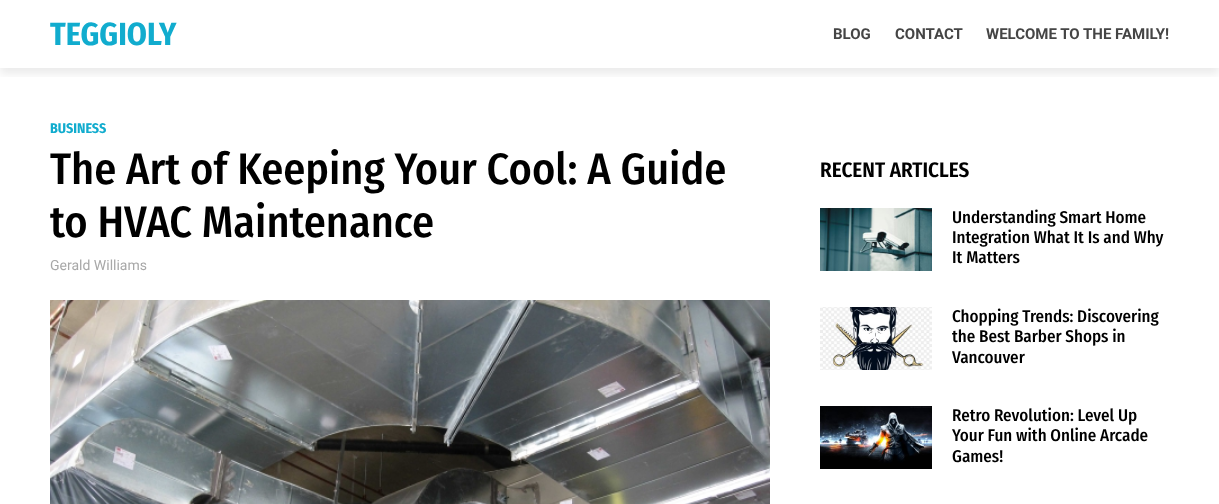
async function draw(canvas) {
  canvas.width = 1219;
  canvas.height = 504;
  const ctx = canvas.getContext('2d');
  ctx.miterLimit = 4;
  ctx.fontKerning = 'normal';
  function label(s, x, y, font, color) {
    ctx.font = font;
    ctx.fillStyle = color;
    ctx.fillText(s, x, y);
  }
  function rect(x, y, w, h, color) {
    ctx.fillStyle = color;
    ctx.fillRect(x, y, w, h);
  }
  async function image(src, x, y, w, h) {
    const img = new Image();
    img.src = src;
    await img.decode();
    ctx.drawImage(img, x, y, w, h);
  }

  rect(0, 0, 1219, 504, '#fff');
  ctx.save();
  ctx.beginPath();
  ctx.rect(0, 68, 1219, 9);
  ctx.clip();
  ctx.fillStyle = '#00000014';
  ctx.filter = 'blur(4px)';
  ctx.beginPath();
  ctx.rect(0, 6, 1219, 68);
  ctx.fill();
  ctx.filter = 'none';
  ctx.restore();
  label('TEGGIOLY', 50, 45, 'bold 32px Fira Sans Condensed', '#11acce');
  label('BLOG', 833, 39, 'bold 15px Roboto', '#454545');
  label('CONTACT', 895, 39, 'bold 15px Roboto', '#454545');
  label('WELCOME TO THE FAMILY!', 986, 39, 'bold 15px Roboto', '#454545');
  label('BUSINESS', 50, 133, 'bold 14px Fira Sans Condensed', '#11acce');
  label('The Art of Keeping Your Cool: A Guide', 50, 184, '500 44px Fira Sans Condensed', '#000');
  label('to HVAC Maintenance', 50, 237, '500 44px Fira Sans Condensed', '#000');
  label('Gerald Williams', 50, 270, '14px Roboto', '#a8a8a8');
  await image('assets/img1.png', 50, 300, 720, 204);
  label('RECENT ARTICLES', 820, 177, '600 21px Fira Sans Condensed', '#000');
  await image('assets/img2.png', 820, 208, 112, 63);
  label('Understanding Smart Home', 952, 223, '500 17px Fira Sans Condensed', '#000');
  label('Integration What It Is and Why', 952, 243, '500 17px Fira Sans Condensed', '#000');
  label('It Matters', 952, 263, '500 17px Fira Sans Condensed', '#000');
  await image('assets/img3.png', 820, 307, 112, 63);
  label('Chopping Trends: Discovering', 952, 322, '500 17px Fira Sans Condensed', '#000');
  label('the Best Barber Shops in', 952, 342, '500 17px Fira Sans Condensed', '#000');
  label('Vancouver', 952, 363, '500 17px Fira Sans Condensed', '#000');
  await image('assets/img4.png', 820, 406, 112, 63);
  label('Retro Revolution: Level Up', 952, 421, '500 17px Fira Sans Condensed', '#000');
  label('Your Fun with Online Arcade', 952, 441, '500 17px Fira Sans Condensed', '#000');
  label('Games!', 952, 462, '500 17px Fira Sans Condensed', '#000');
}

draw(document.querySelector('canvas'));
